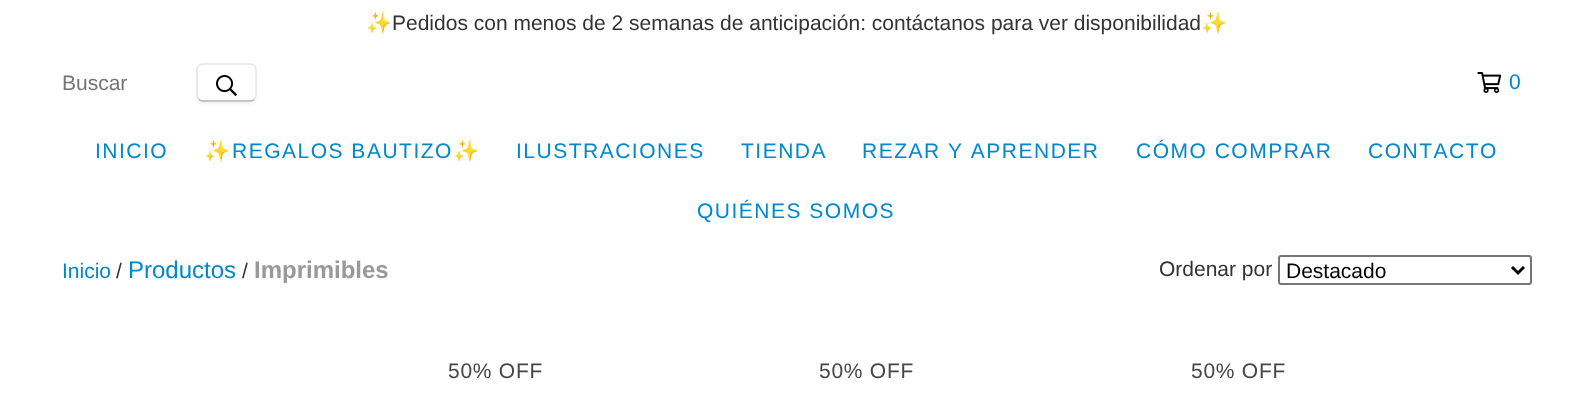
async function draw(canvas) {
  canvas.width = 1592;
  canvas.height = 402;
  const ctx = canvas.getContext('2d');
  ctx.miterLimit = 4;
  ctx.fontKerning = 'none';
  function label(s, x, y, font, color) {
    ctx.font = font;
    ctx.fillStyle = color;
    ctx.fillText(s, x, y);
  }
  function rect(x, y, w, h, color) {
    ctx.fillStyle = color;
    ctx.fillRect(x, y, w, h);
  }
  async function image(src, x, y, w, h) {
    const img = new Image();
    img.src = src;
    await img.decode();
    ctx.drawImage(img, x, y, w, h);
  }
  let path;

  rect(0, 0, 1592, 402, '#fff');
  label('✨', 366, 30, '21px Noto Color Emoji', '#333');
  label('Pedidos con menos de 2 semanas de anticipación: contáctanos para ver disponibilidad', 392, 30, '21px Liberation Sans', '#333');
  label('✨', 1201, 30, '21px Noto Color Emoji', '#333');
  label('Buscar', 62, 90, '21px Liberation Sans', '#757575');
  ctx.save();
  path = new Path2D('M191 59H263V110H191ZM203 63H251C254.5 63 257 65.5 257 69V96C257 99.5 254.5 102 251 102H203C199.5 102 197 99.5 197 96V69C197 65.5 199.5 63 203 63Z');
  ctx.clip(path, 'evenodd');
  ctx.fillStyle = '#0000000d';
  ctx.filter = 'blur(1.5px)';
  ctx.beginPath();
  ctx.roundRect(197, 65, 60, 39, 6);
  ctx.fill();
  ctx.filter = 'none';
  ctx.restore();
  path = new Path2D('M254 99.5C253 100.5 252 101 250.5 101H202.5C201 101 200 100.5 199 99.5');
  ctx.strokeStyle = '#b3b3b3';
  ctx.lineWidth = 1.5;
  ctx.stroke(path);
  path = new Path2D('M199 99.5C198 98.5 197 97.5 197 96V69C197 67.5 198 66.5 199 65.5C200 64.5 201 64 202.5 64H250.5C252 64 253 64.5 254 65.5C255 66.5 256 67.5 256 69V96C256 97.5 255 98.5 254 99.5');
  ctx.strokeStyle = '#0000001a';
  ctx.stroke(path);
  await image('assets/img1.png', 216, 75, 21, 21);
  await image('assets/img2.png', 1477, 72, 25, 21);
  ctx.letterSpacing = '1.5px';
  label('0', 1509, 89, '21px Liberation Sans', '#08c');
  label('INICIO', 95, 158, '21px Liberation Sans', '#08c');
  label('✨', 204, 158, '21px Noto Color Emoji', '#08c');
  label('REGALOS BAUTIZO', 232, 158, '21px Liberation Sans', '#08c');
  label('✨', 453, 158, '21px Noto Color Emoji', '#08c');
  label('ILUSTRACIONES', 516, 158, '21px Liberation Sans', '#08c');
  label('TIENDA', 741, 158, '21px Liberation Sans', '#08c');
  label('REZAR Y APRENDER', 862, 158, '21px Liberation Sans', '#08c');
  label('CÓMO COMPRAR', 1136, 158, '21px Liberation Sans', '#08c');
  label('CONTACTO', 1368, 158, '21px Liberation Sans', '#08c');
  label('QUIÉNES SOMOS', 697, 218, '21px Liberation Sans', '#08c');
  ctx.letterSpacing = '0px';
  label('Inicio', 62, 278, '21px Liberation Sans', '#08c');
  label('/', 116, 278, '21px Liberation Sans', '#333');
  label('Productos', 128, 278, '24px Liberation Sans', '#08c');
  label('/', 242, 278, '21px Liberation Sans', '#333');
  label('Imprimibles', 254, 278, 'bold 24px Liberation Sans', '#999');
  label('Ordenar por', 1159, 276, '21px Liberation Sans', '#333');
  ctx.beginPath();
  ctx.roundRect(1279, 256, 252, 28, 2);
  ctx.strokeStyle = '#767676';
  ctx.lineWidth = 2;
  ctx.stroke();
  path = new Path2D('M1512 267L1518 273L1524 267');
  ctx.strokeStyle = '#000';
  ctx.lineWidth = 3;
  ctx.stroke(path);
  label('Destacado', 1286, 278, '21px Liberation Sans', '#000');
  ctx.letterSpacing = '0.75px';
  label('50% OFF', 448, 378, '21px Liberation Sans', '#474747');
  label('50% OFF', 819, 378, '21px Liberation Sans', '#474747');
  label('50% OFF', 1191, 378, '21px Liberation Sans', '#474747');
}

draw(document.querySelector('canvas'));
